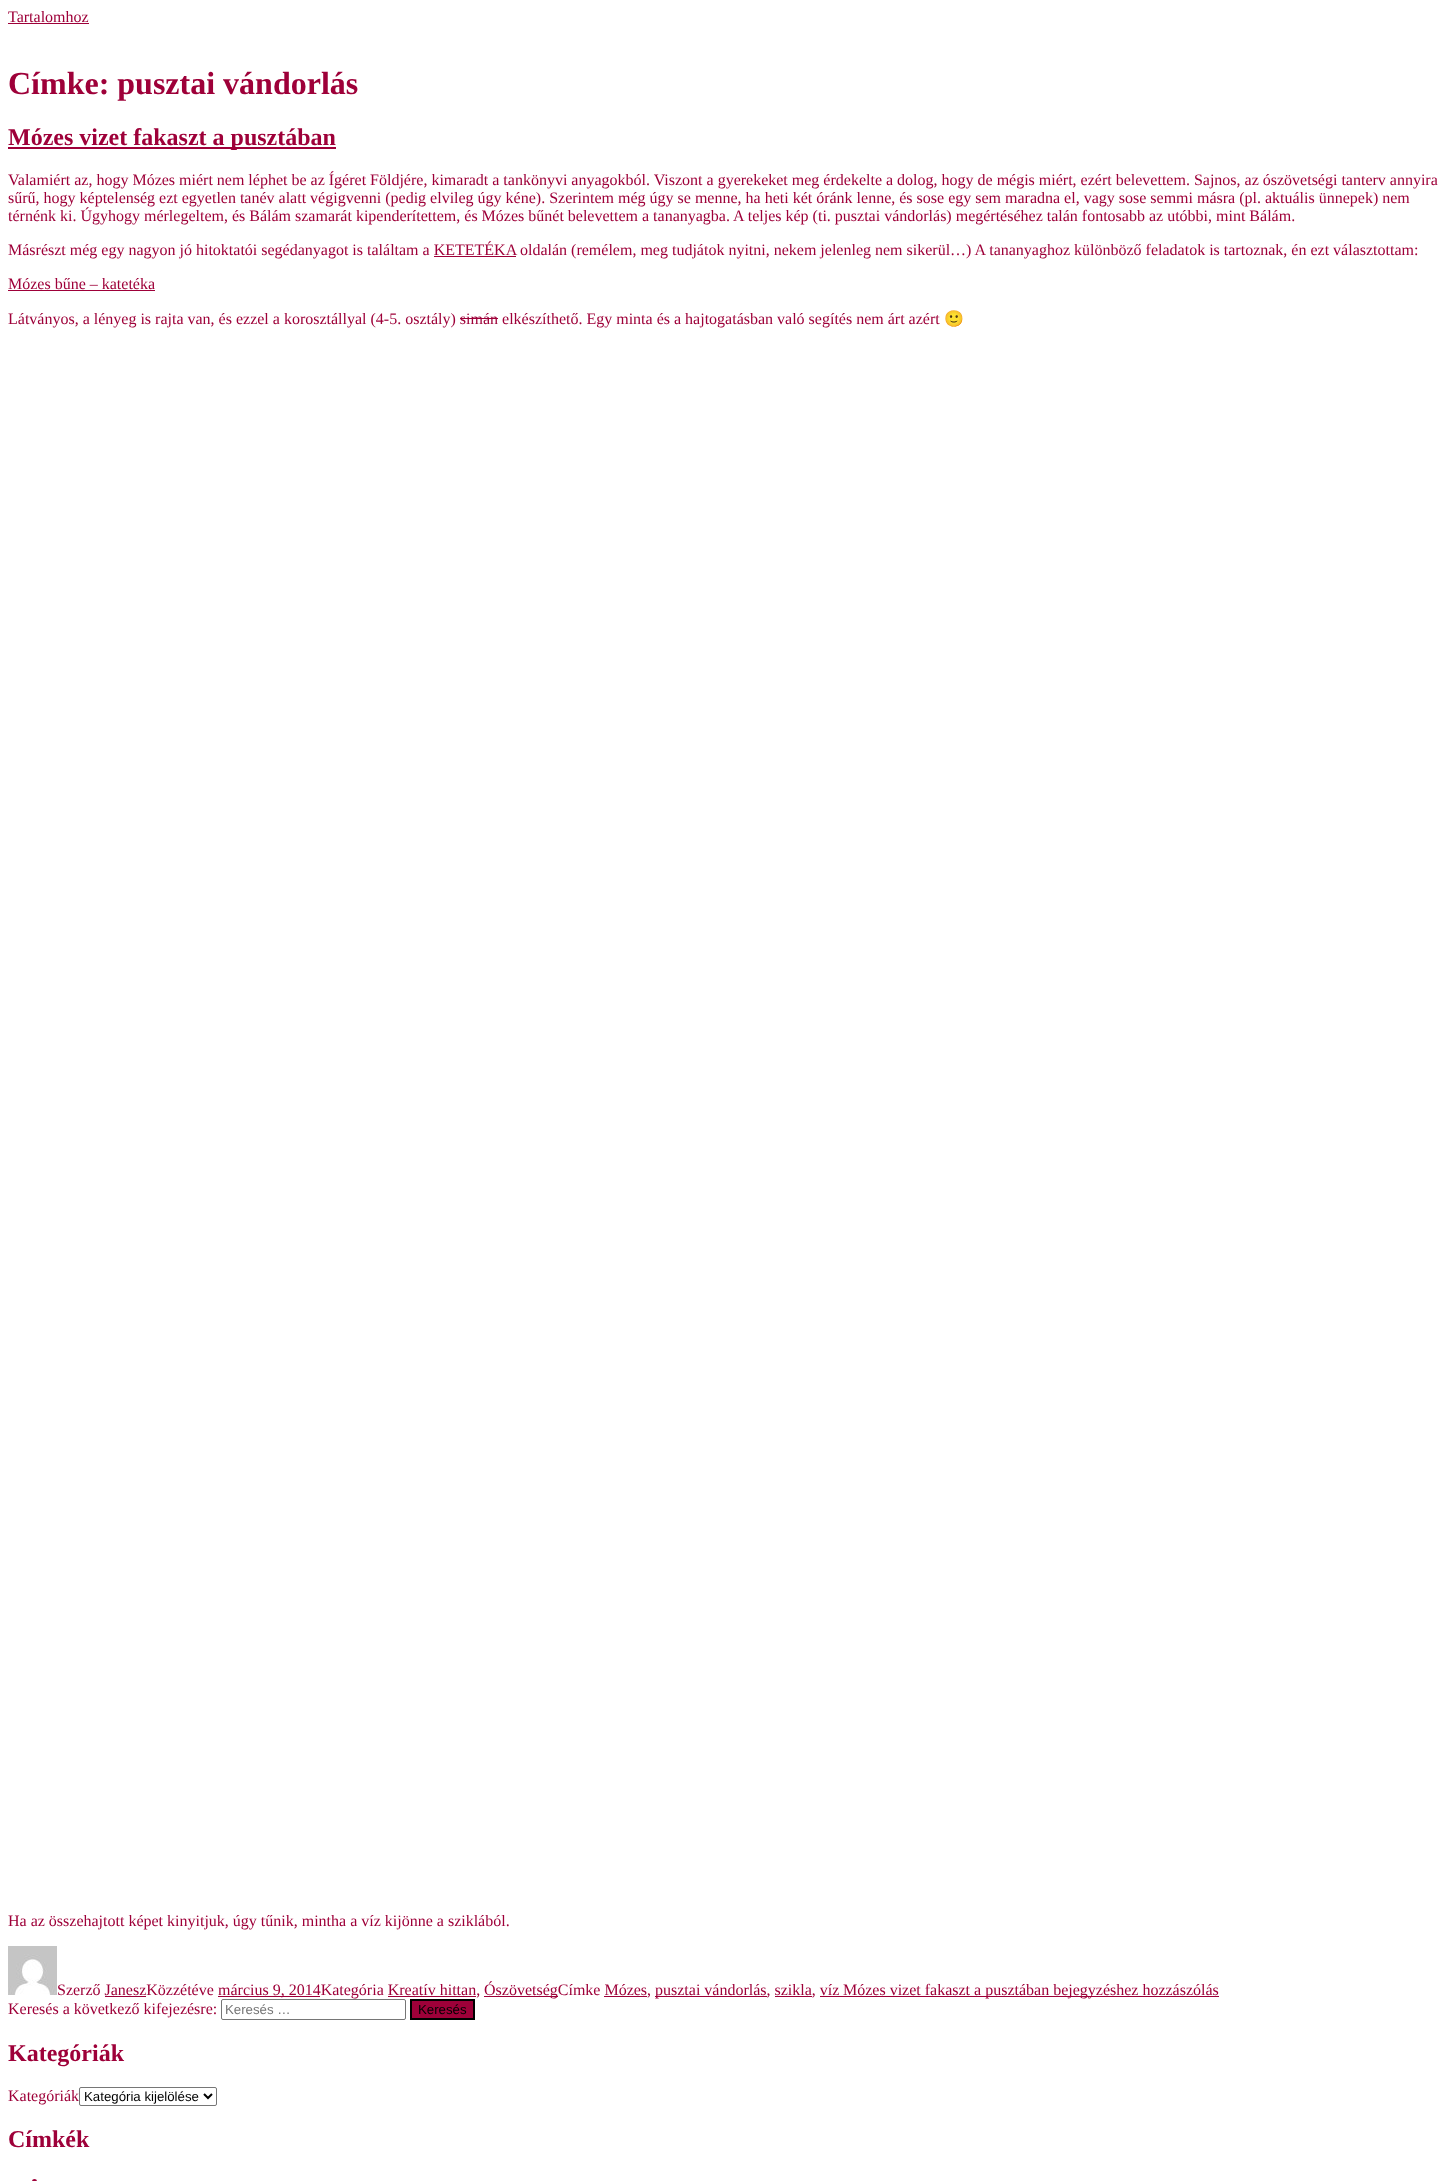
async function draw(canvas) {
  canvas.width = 1454;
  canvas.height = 2181;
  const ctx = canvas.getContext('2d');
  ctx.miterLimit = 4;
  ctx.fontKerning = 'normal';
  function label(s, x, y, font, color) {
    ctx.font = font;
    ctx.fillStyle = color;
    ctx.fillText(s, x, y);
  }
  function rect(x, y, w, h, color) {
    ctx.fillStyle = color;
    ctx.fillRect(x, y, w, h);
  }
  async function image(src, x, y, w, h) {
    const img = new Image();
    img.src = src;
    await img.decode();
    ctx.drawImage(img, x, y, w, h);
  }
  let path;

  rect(0, 0, 1454, 2181, '#fff');
  label('Tartalomhoz', 8, 22, '16px Liberation Serif', '#9e0039');
  rect(8, 23, 81, 1, '#9e0039');
  label('Címke: pusztai vándorlás', 8, 94, 'bold 32px Liberation Serif', '#9e0039');
  rect(8, 147, 328, 2, '#9e0039');
  label('Mózes vizet fakaszt a pusztában', 8, 145, 'bold 24px Liberation Serif', '#9e0039');
  label('Valamiért az, hogy Mózes miért nem léphet be az Ígéret Földjére, kimaradt a tankönyvi anyagokból. Viszont a gyerekeket meg érdekelte a dolog, hogy de mégis miért, ezért belevettem. Sajnos, az ószövetségi tanterv annyira', 8, 185, '16px Liberation Serif', '#9e0039');
  label('sűrű, hogy képtelenség ezt egyetlen tanév alatt végigvenni (pedig elvileg úgy kéne). Szerintem még úgy se menne, ha heti két óránk lenne, és sose egy sem maradna el, vagy sose semmi másra (pl. aktuális ünnepek) nem', 8, 203, '16px Liberation Serif', '#9e0039');
  label('térnénk ki. Úgyhogy mérlegeltem, és Bálám szamarát kipenderítettem, és Mózes bűnét belevettem a tananyagba. A teljes kép (ti. pusztai vándorlás) megértéséhez talán fontosabb az utóbbi, mint Bálám.', 8, 221, '16px Liberation Serif', '#9e0039');
  label('Másrészt még egy nagyon jó hitoktatói segédanyagot is találtam a KETETÉKA', 8, 255, '16px Liberation Serif', '#9e0039');
  label('oldalán (remélem, meg tudjátok nyitni, nekem jelenleg nem sikerül…) A tananyaghoz különböző feladatok is tartoznak, én ezt választottam:', 520, 255, '16px Liberation Serif', '#9e0039');
  rect(434, 256, 82, 1, '#9e0039');
  label('Mózes bűne – katetéka', 8, 289, '16px Liberation Serif', '#9e0039');
  rect(8, 290, 147, 1, '#9e0039');
  label('Látványos, a lényeg is rajta van, és ezzel a korosztállyal (4-5. osztály) simán elkészíthető. Egy minta és a hajtogatásban való segítés nem árt azért', 8, 324, '16px Liberation Serif', '#9e0039');
  label('🙂', 944, 324, '16px Noto Color Emoji', '#9e0039');
  rect(460, 318, 38, 1, '#9e0039');
  label('Ha az összehajtott képet kinyitjuk, úgy tűnik, mintha a víz kijönne a sziklából.', 8, 1926, '16px Liberation Serif', '#9e0039');
  await image('assets/img1.png', 8, 1946, 49, 49);
  label('Szerző JaneszKözzétéve', 57, 1995, '16px Liberation Serif', '#9e0039');
  rect(105, 1996, 41, 1, '#9e0039');
  rect(218, 1996, 102, 1, '#9e0039');
  label('március 9, 2014Kategória Kreatív hittan,', 218, 1995, '16px Liberation Serif', '#9e0039');
  rect(484, 1996, 74, 1, '#9e0039');
  label('ÓszövetségCímke Mózes,', 484, 1995, '16px Liberation Serif', '#9e0039');
  rect(388, 1996, 88, 1, '#9e0039');
  rect(655, 1996, 112, 1, '#9e0039');
  label('pusztai vándorlás, szikla, víz', 655, 1995, '16px Liberation Serif', '#9e0039');
  rect(604, 1996, 43, 1, '#9e0039');
  rect(775, 1996, 37, 1, '#9e0039');
  rect(820, 1996, 399, 1, '#9e0039');
  label('Mózes vizet fakaszt a pusztában bejegyzéshez hozzászólás', 843, 1995, '16px Liberation Serif', '#9e0039');
  label('Keresés a következő kifejezésre:', 8, 2014, '16px Liberation Serif', '#9e0039');
  ctx.beginPath();
  ctx.roundRect(221.5, 1999.5, 184, 20, 1.5);
  ctx.strokeStyle = '#767676';
  ctx.stroke();
  label('Keresés …', 225, 2014, '13.25px Liberation Sans', '#757575');
  ctx.fillStyle = '#9e0039';
  ctx.beginPath();
  ctx.rect(411, 2000, 63, 19);
  ctx.fill();
  ctx.strokeStyle = '#000';
  ctx.lineWidth = 2;
  ctx.stroke();
  label('Keresés', 418, 2014, '13.25px Liberation Sans', '#000');
  label('Kategóriák', 8, 2061, 'bold 24px Liberation Serif', '#9e0039');
  label('Kategóriák', 8, 2101, '16px Liberation Serif', '#9e0039');
  ctx.fillStyle = '#fff';
  ctx.beginPath();
  ctx.roundRect(79.5, 2087.5, 137, 18, 1.5);
  ctx.fill();
  ctx.strokeStyle = '#767676';
  ctx.lineWidth = 1;
  ctx.stroke();
  path = new Path2D('M204 2094L208 2098L212 2094');
  ctx.strokeStyle = '#000';
  ctx.lineWidth = 2;
  ctx.stroke(path);
  label('Kategória kijelölése', 84, 2101, '13.25px Liberation Sans', '#000');
  label('Címkék', 8, 2147, 'bold 24px Liberation Serif', '#9e0039');
  ctx.beginPath();
  ctx.arc(34.5, 2181.5, 2.5, 0, 2 * Math.PI);
  ctx.fill();
}

draw(document.querySelector('canvas'));
